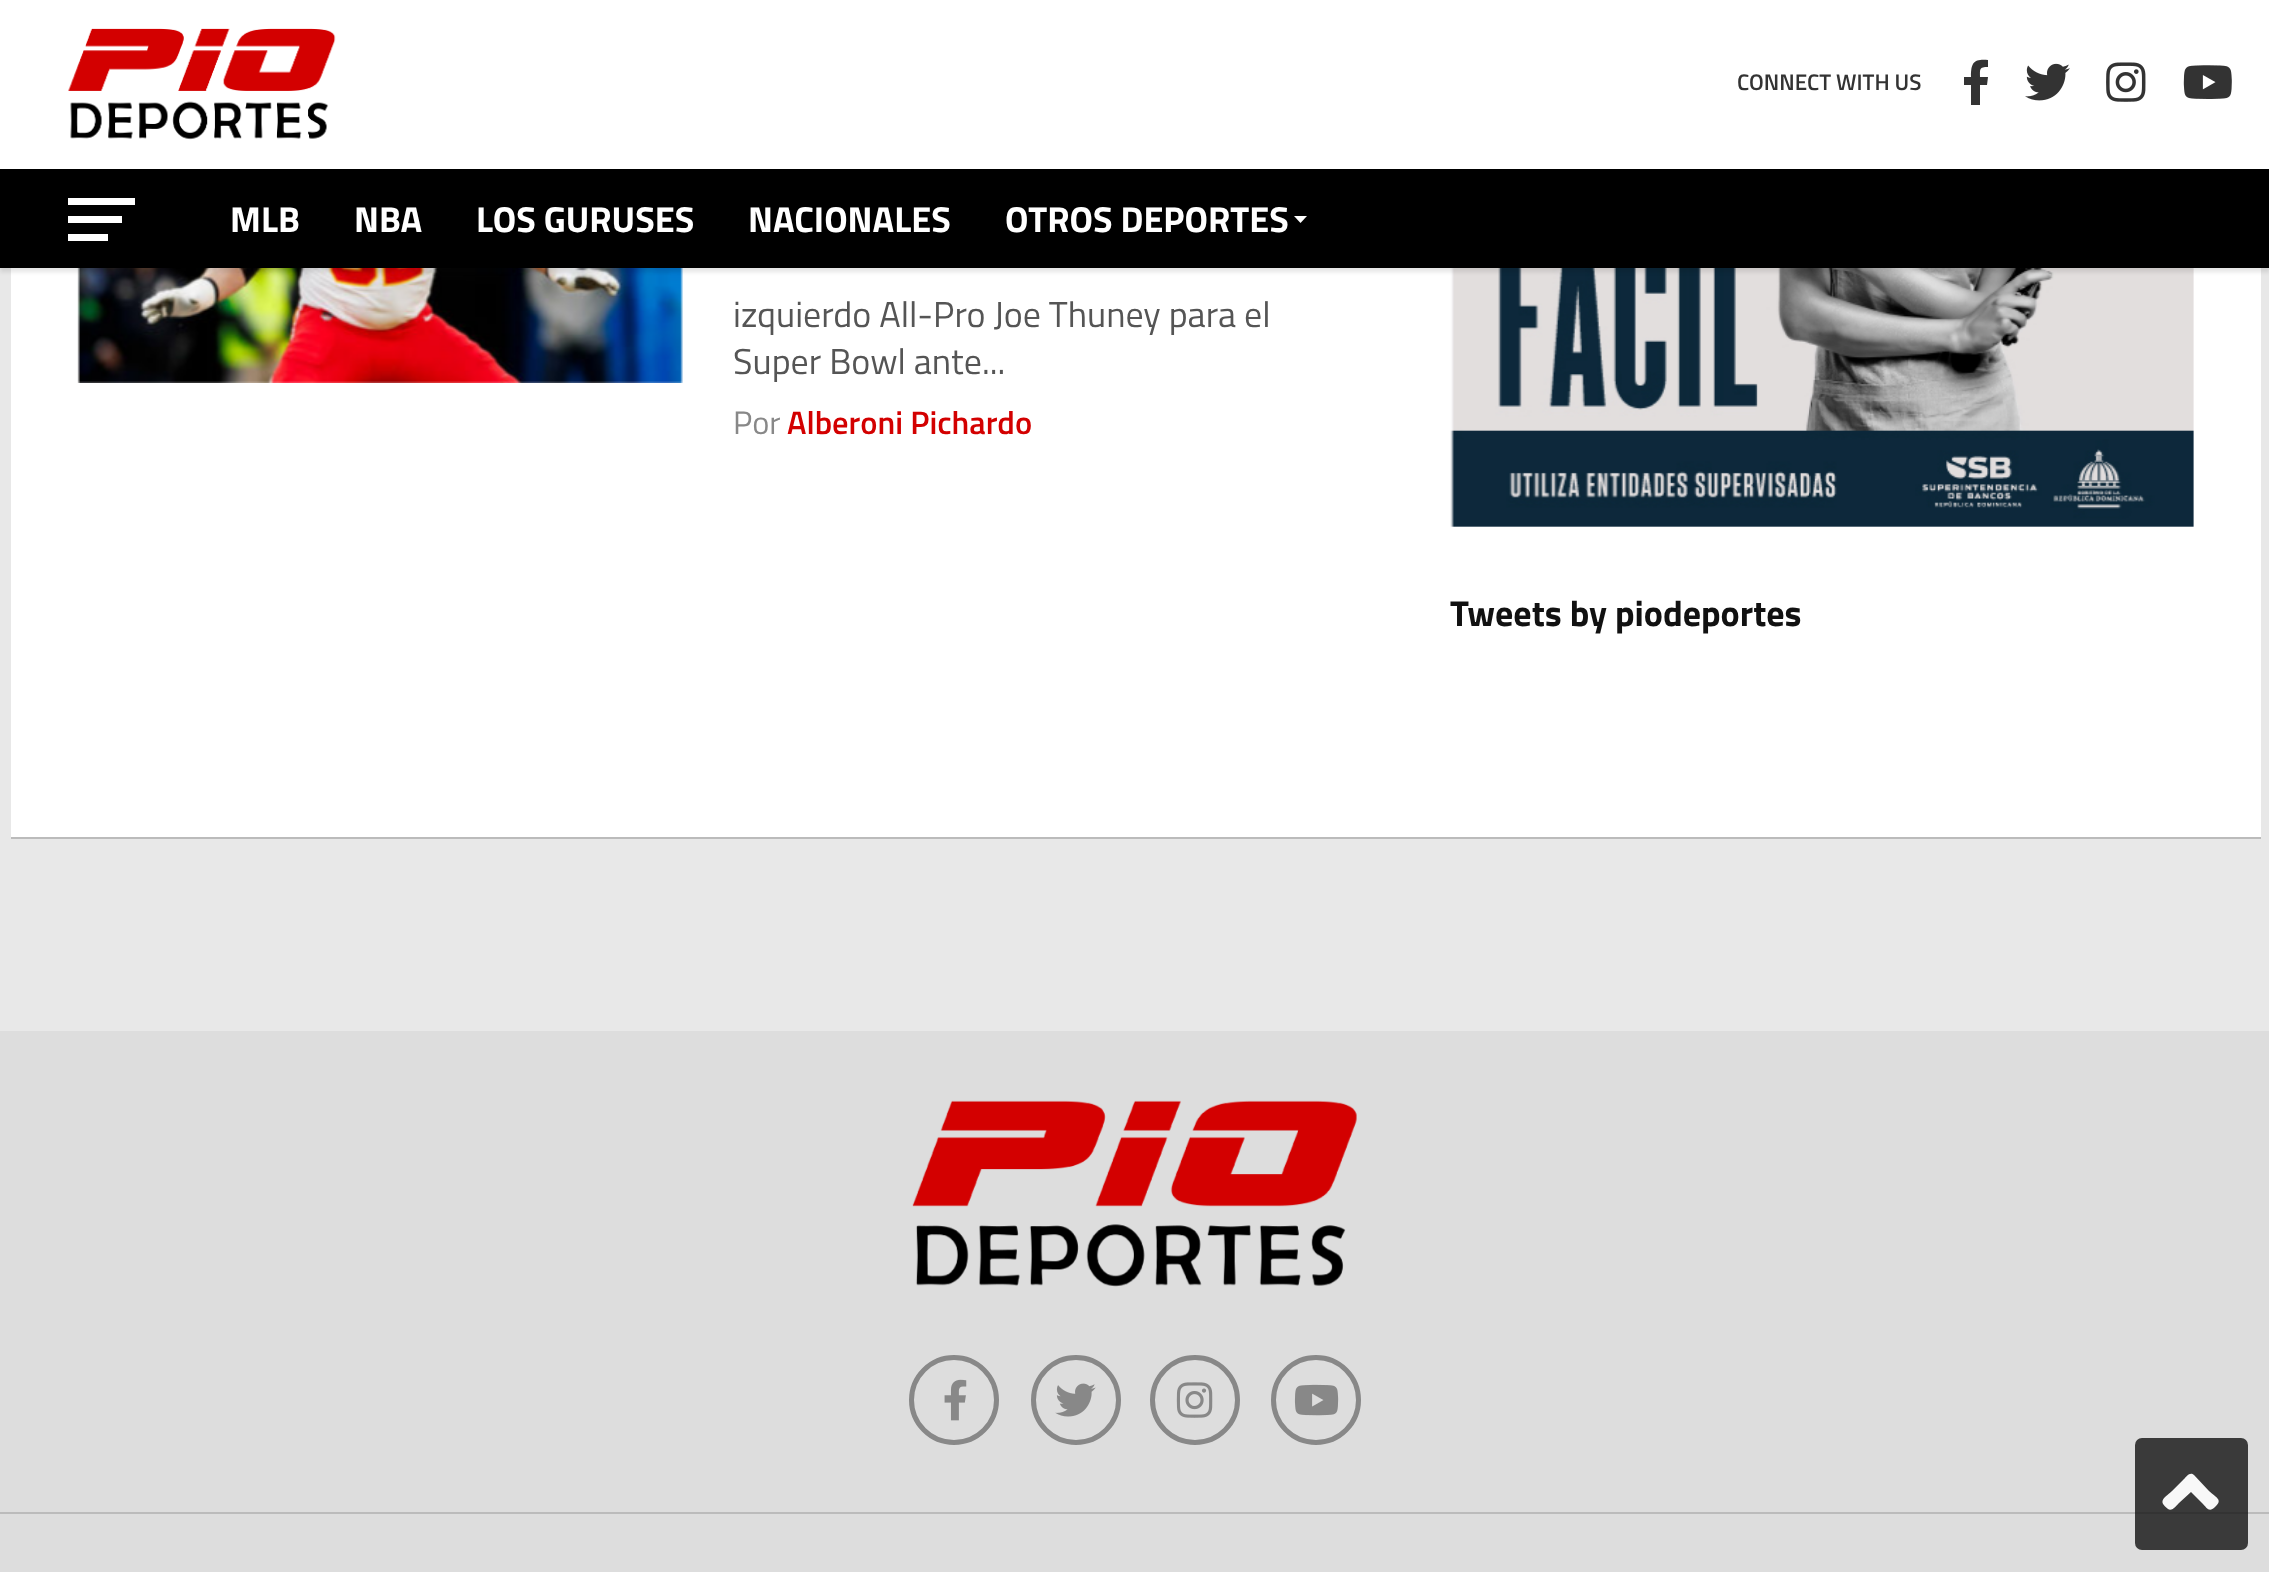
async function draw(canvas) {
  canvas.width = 2269;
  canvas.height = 1572;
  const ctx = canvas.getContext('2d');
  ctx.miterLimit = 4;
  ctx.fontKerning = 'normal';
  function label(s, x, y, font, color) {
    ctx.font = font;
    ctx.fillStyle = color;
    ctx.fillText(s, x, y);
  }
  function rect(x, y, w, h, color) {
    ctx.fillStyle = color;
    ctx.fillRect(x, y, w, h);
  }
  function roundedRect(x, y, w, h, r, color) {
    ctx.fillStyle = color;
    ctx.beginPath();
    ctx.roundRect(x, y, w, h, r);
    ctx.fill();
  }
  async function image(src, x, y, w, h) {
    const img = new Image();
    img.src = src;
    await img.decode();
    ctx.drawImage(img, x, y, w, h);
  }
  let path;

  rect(0, 0, 2269, 1572, '#e8e8e8');
  rect(11, 268, 2250, 569, '#fff');
  await image('assets/img5.png', 77, 268, 606, 115);
  await image('assets/img6.png', 1450, 268, 744, 259);
  ctx.fillStyle = '#0000001a';
  ctx.filter = 'blur(2px)';
  ctx.beginPath();
  ctx.rect(0, 5, 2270, 267);
  ctx.fill();
  ctx.filter = 'none';
  rect(0, 0, 2269, 169, '#fff');
  await image('assets/img1.png', 68, 28, 268, 112);
  label('CONNECT WITH US', 1737, 90, '600 22.5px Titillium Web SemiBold', '#333');
  path = new Path2D('M1987 85H1980V105H1971V85H1964V77H1971C1971 62 1974 59 1988 60V67C1979 67 1980 69 1980 77H1988Z');
  ctx.fill(path);
  await image('assets/img2.png', 2025, 63, 45, 38);
  await image('assets/img3.png', 2106, 62, 40, 40);
  await image('assets/img4.png', 2183, 65, 49, 34);
  rect(0, 169, 2269, 99, '#000');
  rect(68, 198, 67, 7, '#fff');
  rect(68, 216, 54, 7, '#fff');
  rect(68, 234, 40, 7, '#fff');
  label('MLB', 230, 232, 'bold 36px Titillium Web', '#fff');
  label('NBA', 354, 232, 'bold 36px Titillium Web', '#fff');
  label('LOS GURUSES', 476, 232, 'bold 36px Titillium Web', '#fff');
  label('NACIONALES', 748, 232, 'bold 36px Titillium Web', '#fff');
  label('OTROS DEPORTES', 1005, 232, 'bold 36px Titillium Web', '#fff');
  path = new Path2D('M1294 216H1307L1300.5 223Z');
  ctx.fill(path);
  rect(11, 837, 2250, 2, '#bbb');
  label('izquierdo All-Pro Joe Thuney para el', 733, 327, '36px Titillium Web', '#555');
  label('Super Bowl ante...', 733, 374, '36px Titillium Web', '#555');
  label('Por', 733, 434, '32.5px Titillium Web', '#888');
  label('Alberoni Pichardo', 787, 434, '600 32.5px Titillium Web SemiBold', '#d30000');
  label('Tweets by piodeportes', 1450, 626, 'bold 36px Titillium Web', '#111');
  rect(0, 1031, 2269, 541, '#ddd');
  await image('assets/img7.png', 912, 1100, 445, 187);
  ctx.beginPath();
  ctx.arc(954, 1400, 42.5, 0, 2 * Math.PI);
  ctx.strokeStyle = '#888';
  ctx.lineWidth = 5;
  ctx.stroke();
  await image('assets/img8.png', 944, 1379, 23, 42);
  ctx.beginPath();
  ctx.arc(1076, 1400, 42.5, 0, 2 * Math.PI);
  ctx.stroke();
  await image('assets/img9.png', 1055, 1383, 41, 34);
  ctx.beginPath();
  ctx.arc(1195, 1400, 42.5, 0, 2 * Math.PI);
  ctx.stroke();
  await image('assets/img10.png', 1176, 1382, 37, 36);
  ctx.beginPath();
  ctx.arc(1316, 1400, 42.5, 0, 2 * Math.PI);
  ctx.stroke();
  await image('assets/img11.png', 1294, 1384, 45, 32);
  rect(0, 1512, 2269, 2, '#bbb');
  roundedRect(2135, 1438, 113, 112, 7, '#111111cc');
  ctx.fillStyle = '#f8f8f8';
  path = new Path2D('M2194 1475L2209 1491C2217 1498 2223 1500 2215 1507C2209 1513 2207 1508 2202 1503L2191 1492L2179 1503C2177 1505 2172 1512 2168 1509C2158 1501 2163 1499 2172 1491L2184 1479C2186 1477 2190 1471 2194 1475Z');
  ctx.fill(path);
}

draw(document.querySelector('canvas'));
